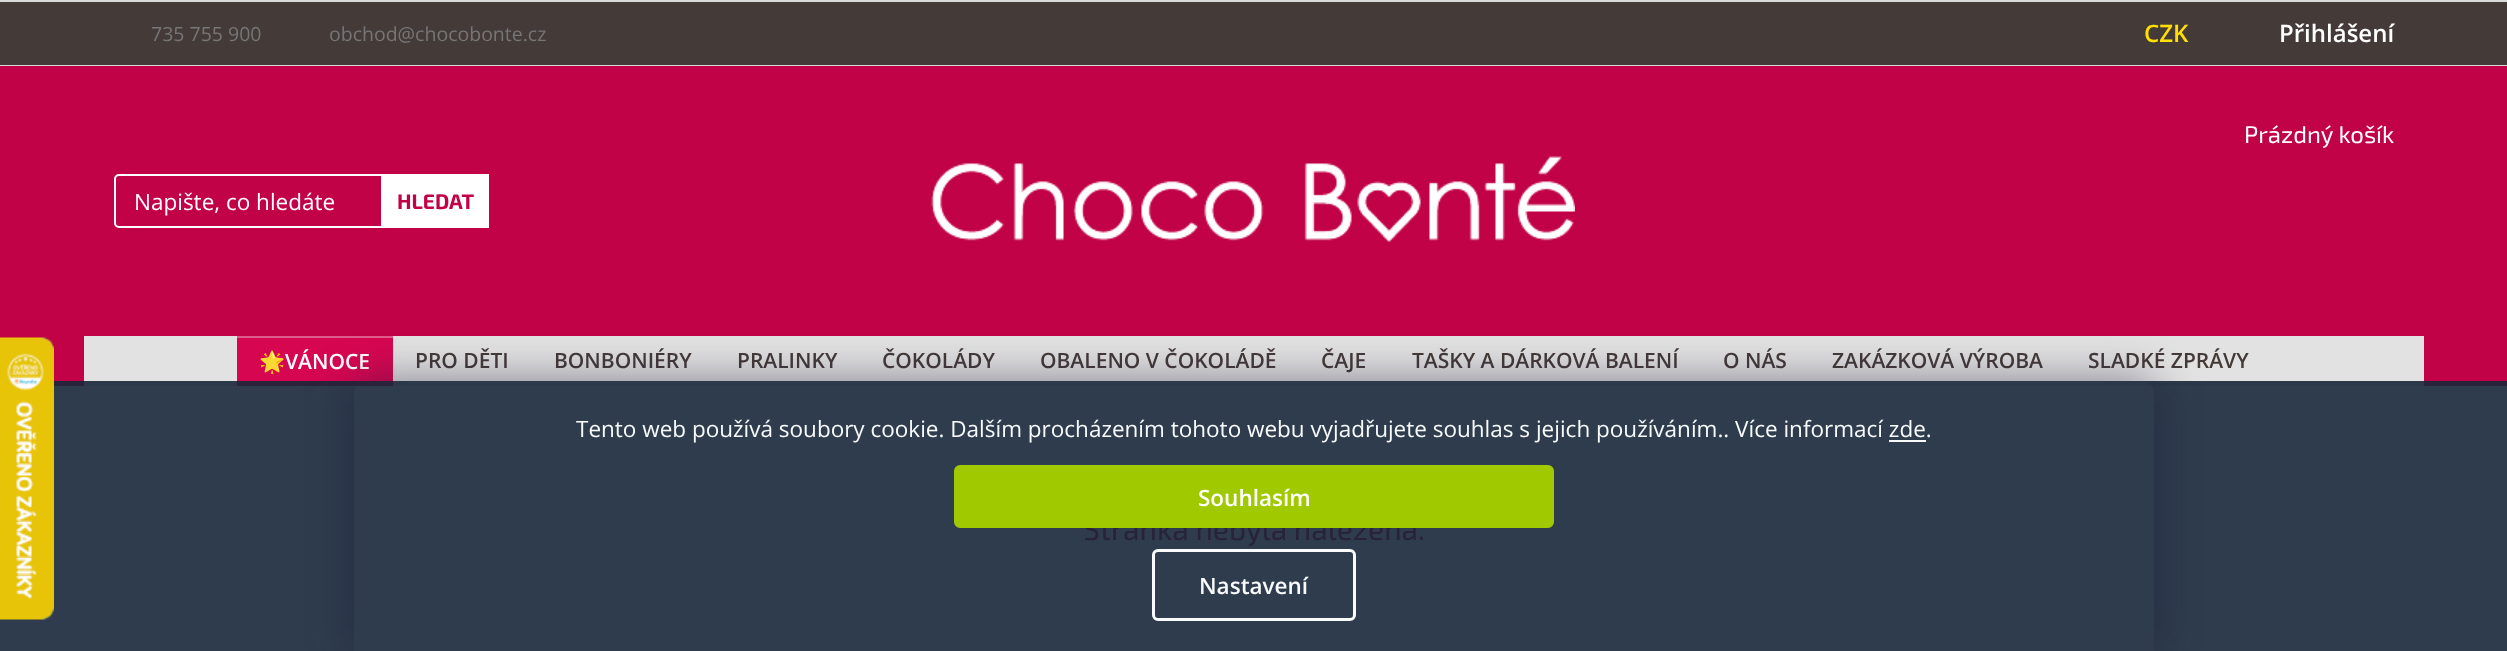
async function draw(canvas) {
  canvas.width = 2507;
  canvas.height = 651;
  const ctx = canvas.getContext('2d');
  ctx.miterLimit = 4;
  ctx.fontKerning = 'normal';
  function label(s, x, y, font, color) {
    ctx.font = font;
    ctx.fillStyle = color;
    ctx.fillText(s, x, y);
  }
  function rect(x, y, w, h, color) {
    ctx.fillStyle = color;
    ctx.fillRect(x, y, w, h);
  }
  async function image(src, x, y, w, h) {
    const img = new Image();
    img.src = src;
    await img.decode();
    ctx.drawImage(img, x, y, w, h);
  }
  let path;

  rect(0, 0, 2507, 651, '#2e3c4d');
  rect(0, 66, 2507, 315, '#c10246');
  await image('assets/img1.png', 0, 337, 54, 283);
  rect(0, 2, 2507, 63, '#443a38');
  rect(0, 0, 2507, 2, '#dadada');
  rect(0, 65, 2507, 1, '#dadada');
  label('735 755 900', 151, 41, '19.5px Open Sans', '#767676');
  label('obchod@chocobonte.cz', 329, 41, '19.5px Open Sans', '#767676');
  label('CZK', 2144, 42, '600 24px Open Sans', '#ffe000');
  label('Přihlášení', 2279, 42, '600 24px Open Sans', '#fff');
  rect(54, 381, 2453, 5, '#28223a');
  label('Prázdný košík', 2244, 143, '24px "Exo 2"', '#fff');
  ctx.beginPath();
  ctx.roundRect(115, 175, 373, 52, 4);
  ctx.strokeStyle = '#fff';
  ctx.lineWidth = 2;
  ctx.stroke();
  label('Napište, co hledáte', 134, 210, '22.5px Open Sans', '#fff');
  rect(381, 174, 108, 54, '#fff');
  label('HLEDAT', 397, 209, 'bold 21px "Exo 2"', '#c10246');
  await image('assets/img2.png', 931, 156, 644, 86);
  rect(84, 336, 2340, 45, '#e2e2e2');
  rect(84, 381, 2340, 5, '#2b394a');
  rect(237, 338, 156, 43, '#d70651');
  rect(237, 381, 156, 5, '#2a233b');
  rect(237, 336, 156, 2, '#df5d8c');
  label('🌟', 259, 369, 'bold 21px Noto Color Emoji', '#fff');
  label('VÁNOCE', 285, 369, '600 21px Open Sans', '#fff');
  label('PRO DĚTI', 415, 368, '600 21px Open Sans', '#443a38');
  label('BONBONIÉRY', 554, 368, '600 21px Open Sans', '#443a38');
  label('PRALINKY', 737, 368, '600 21px Open Sans', '#443a38');
  label('ČOKOLÁDY', 882, 368, '600 21px Open Sans', '#443a38');
  label('OBALENO V ČOKOLÁDĚ', 1040, 368, '600 21px Open Sans', '#443a38');
  label('ČAJE', 1321, 368, '600 21px Open Sans', '#443a38');
  label('TAŠKY A DÁRKOVÁ BALENÍ', 1412, 368, '600 21px Open Sans', '#443a38');
  label('O NÁS', 1723, 368, '600 21px Open Sans', '#443a38');
  label('ZAKÁZKOVÁ VÝROBA', 1832, 368, '600 21px Open Sans', '#443a38');
  label('SLADKÉ ZPRÁVY', 2088, 368, '600 21px Open Sans', '#443a38');
  label('Stránka nebyla nalezena.', 1083, 540, '30px "Exo 2"', '#28223a');
  ctx.save();
  path = new Path2D('M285 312H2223V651H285ZM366 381H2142C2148.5 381 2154 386.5 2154 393V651H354V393C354 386.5 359.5 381 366 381Z');
  ctx.clip(path, 'evenodd');
  ctx.fillStyle = '#1b193980';
  ctx.filter = 'blur(22.5px)';
  ctx.beginPath();
  ctx.roundRect(354, 381, 1800, 270, 12);
  ctx.fill();
  ctx.filter = 'none';
  ctx.restore();
  label('Tento web používá soubory cookie. Dalším procházením tohoto webu vyjadřujete souhlas s jejich používáním.. Více informací zde.', 576, 437, '22.5px Open Sans', '#f8fafb');
  rect(1889, 440, 37, 2, '#f8fafb');
  ctx.beginPath();
  ctx.roundRect(1153.5, 550.5, 201, 69, 4.5);
  ctx.strokeStyle = '#f8fafb';
  ctx.lineWidth = 3;
  ctx.stroke();
  label('Nastavení', 1199, 594, '600 22.5px Open Sans', '#f8fafb');
  ctx.fillStyle = '#a1c900';
  ctx.beginPath();
  ctx.roundRect(955, 466, 598, 61, 5);
  ctx.fill();
  ctx.strokeStyle = '#a1c900';
  ctx.lineWidth = 2;
  ctx.stroke();
  label('Souhlasím', 1198, 506, '600 22.5px Open Sans', '#fff');
}

draw(document.querySelector('canvas'));
